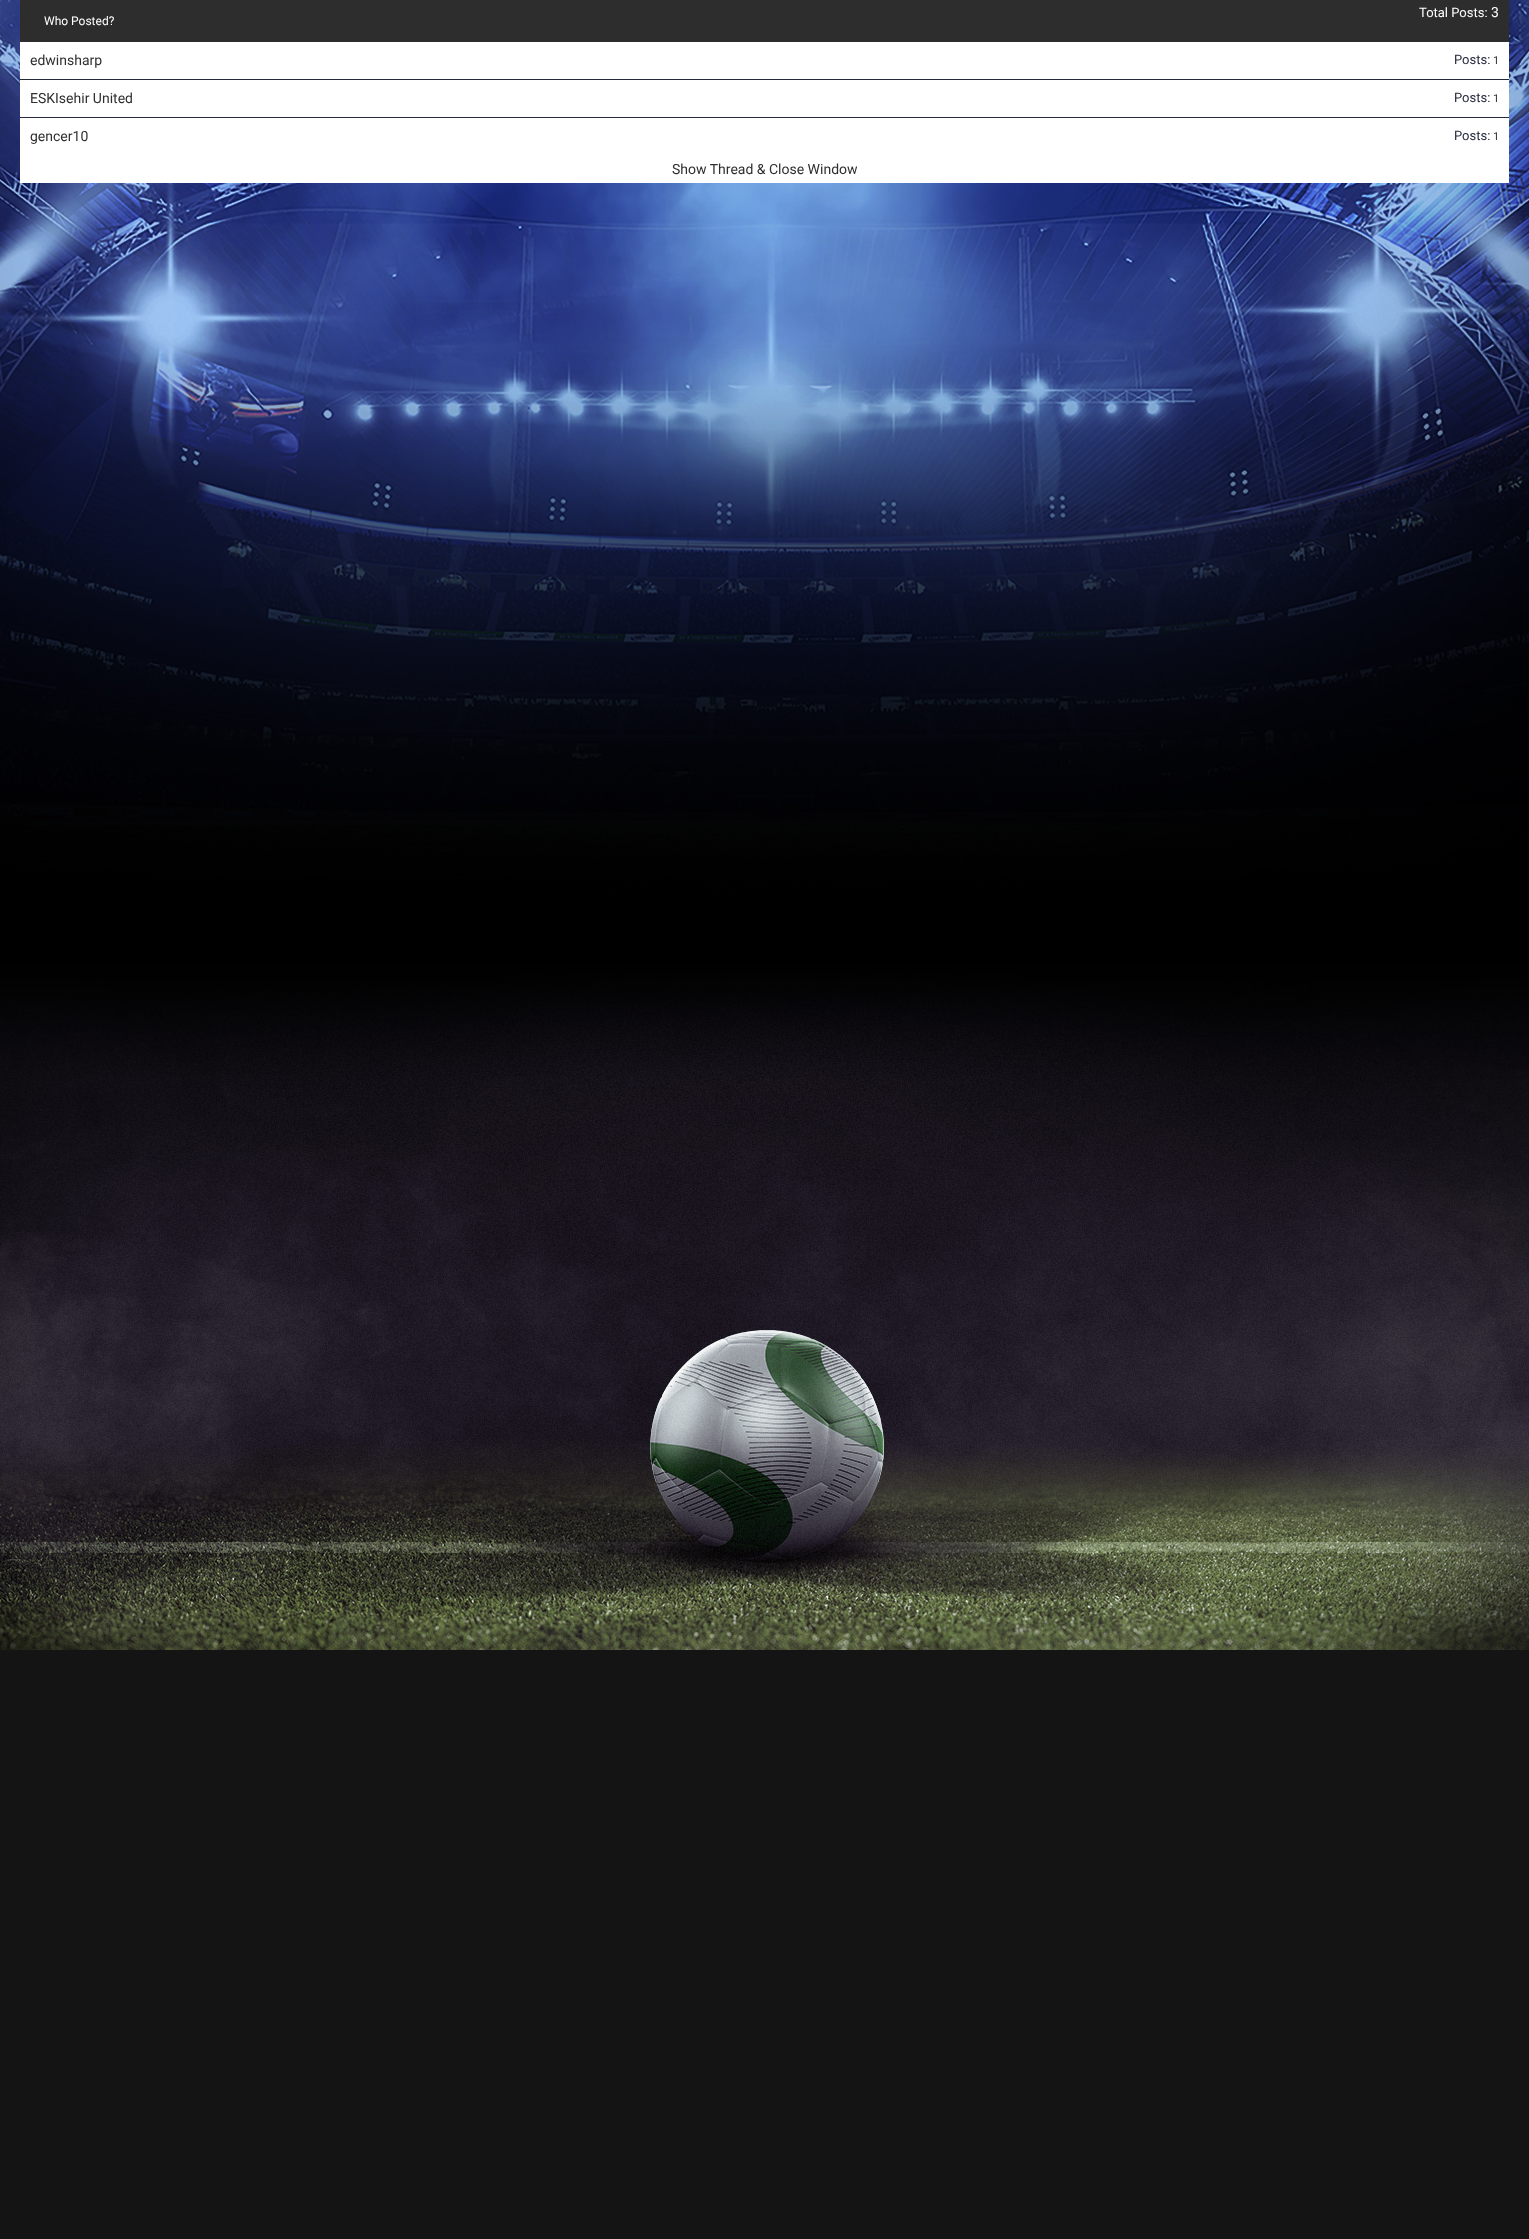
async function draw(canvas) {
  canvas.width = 1529;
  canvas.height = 2239;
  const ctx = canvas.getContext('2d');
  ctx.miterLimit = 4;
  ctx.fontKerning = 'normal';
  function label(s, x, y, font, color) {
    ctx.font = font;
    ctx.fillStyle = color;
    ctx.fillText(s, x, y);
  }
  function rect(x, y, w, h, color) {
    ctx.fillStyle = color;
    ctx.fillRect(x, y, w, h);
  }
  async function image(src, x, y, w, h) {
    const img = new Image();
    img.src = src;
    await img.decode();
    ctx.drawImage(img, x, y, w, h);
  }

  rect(0, 0, 1529, 2239, '#141414');
  await image('assets/img1.png', 0, 0, 1529, 1650);
  rect(20, 0, 1489, 42, '#2d2d2d');
  label('Total Posts:', 1419, 17, '13px Roboto', '#fff');
  label('3', 1491, 17, '14px Roboto', '#fff');
  label('Who Posted?', 44, 25, '12px Roboto', '#fff');
  rect(20, 42, 1489, 141, '#fff');
  rect(20, 79, 1489, 1, '#26293c');
  label('edwinsharp', 30, 65, '14px Roboto', '#2f2f2f');
  label('Posts:', 1454, 64, '13px Roboto', '#26293c');
  label('1', 1493, 64, '11px Roboto', '#2f2f2f');
  rect(20, 117, 1489, 1, '#26293c');
  label('ESKIsehir United', 30, 103, '14px Roboto', '#2f2f2f');
  label('Posts:', 1454, 102, '13px Roboto', '#26293c');
  label('1', 1493, 102, '11px Roboto', '#2f2f2f');
  label('gencer10', 30, 141, '14px Roboto', '#2f2f2f');
  label('Posts:', 1454, 140, '13px Roboto', '#26293c');
  label('1', 1493, 140, '11px Roboto', '#2f2f2f');
  label('Show Thread & Close Window', 672, 174, '14px Roboto', '#2f2f2f');
}

draw(document.querySelector('canvas'));
